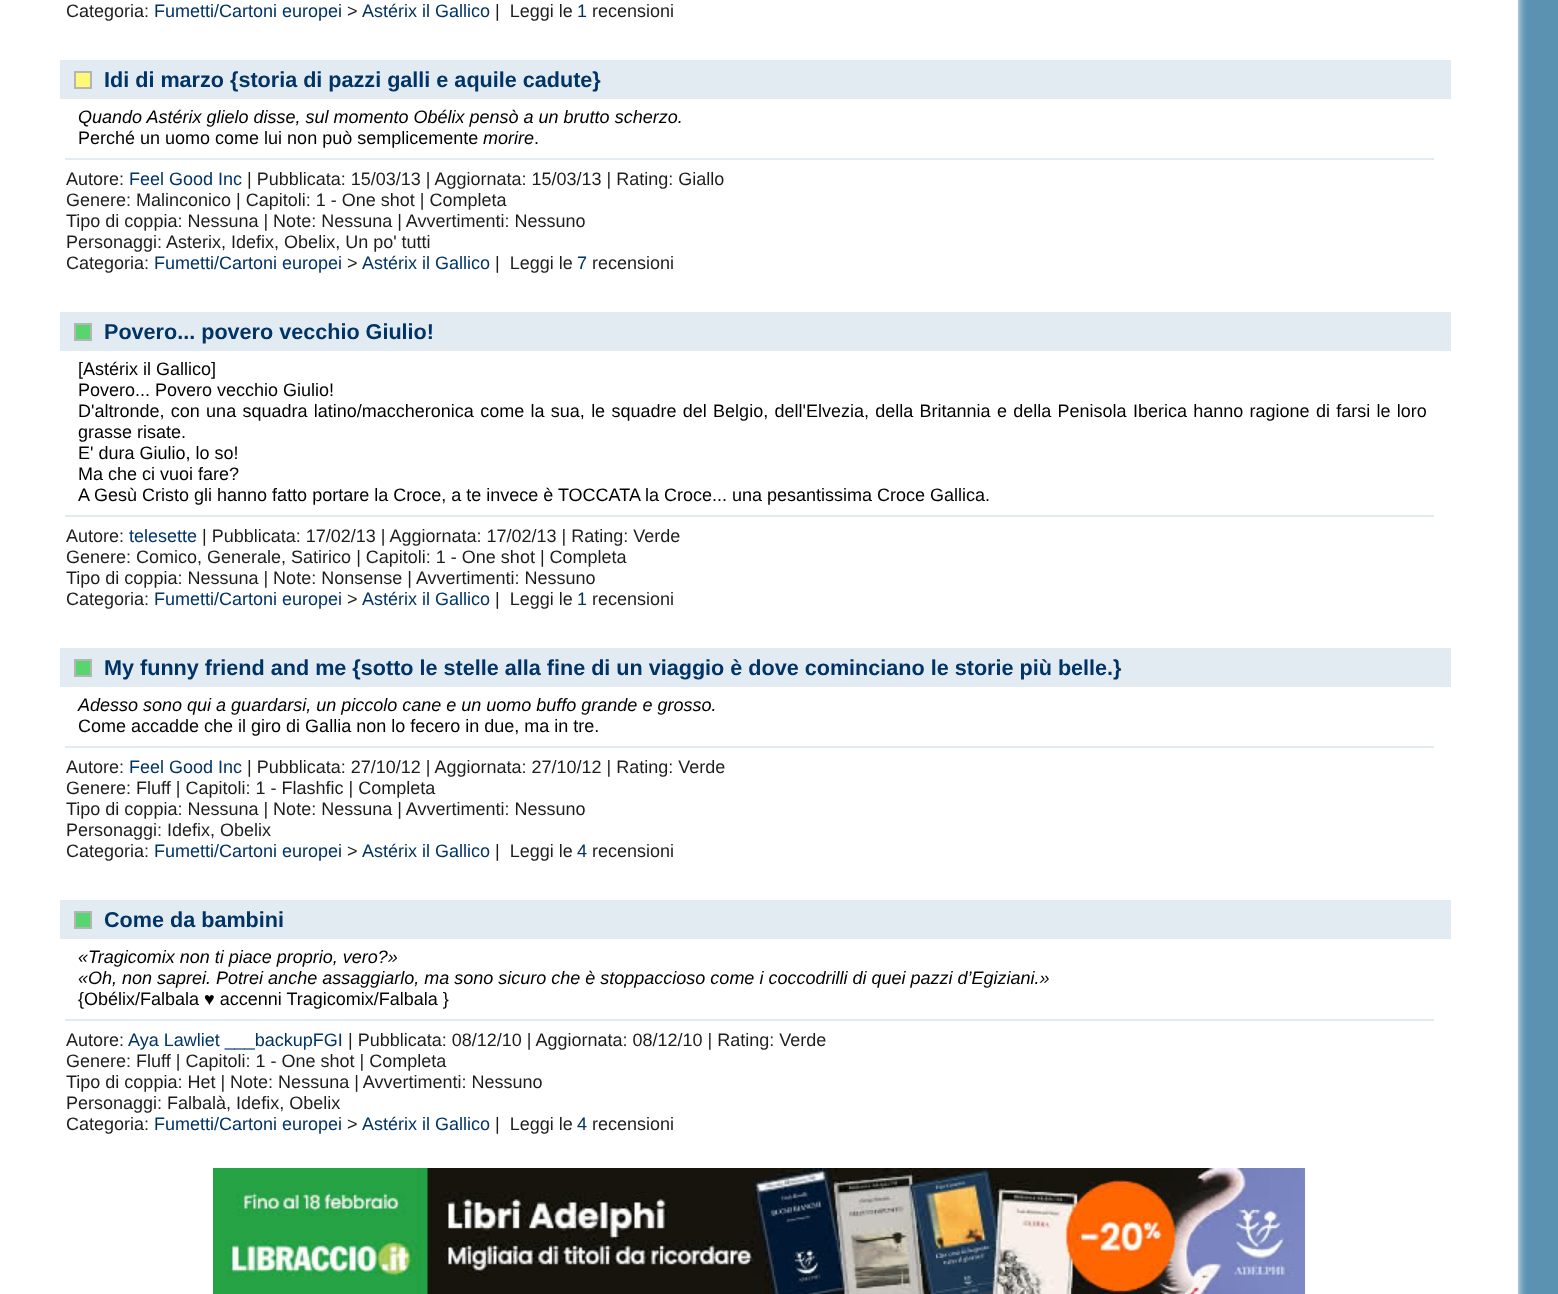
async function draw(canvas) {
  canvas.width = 1558;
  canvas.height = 1294;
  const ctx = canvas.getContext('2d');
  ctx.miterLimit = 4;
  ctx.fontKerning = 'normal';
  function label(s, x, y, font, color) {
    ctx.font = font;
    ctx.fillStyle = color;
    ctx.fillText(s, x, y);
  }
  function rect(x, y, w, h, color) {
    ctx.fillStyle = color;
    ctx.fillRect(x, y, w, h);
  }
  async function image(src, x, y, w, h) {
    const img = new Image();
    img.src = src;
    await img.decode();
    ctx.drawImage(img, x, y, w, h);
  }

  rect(0, 0, 1558, 1294, '#5b92b2');
  ctx.fillStyle = '#fff';
  ctx.filter = 'blur(5px)';
  ctx.beginPath();
  ctx.roundRect(0, -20, 1518, 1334, 5);
  ctx.fill();
  ctx.filter = 'none';
  rect(0, 0, 1518, 1294, '#fff');
  label('Categoria:', 66, 17, '18px Liberation Sans', '#1d1d1d');
  label('Fumetti/Cartoni europei', 154, 17, '18px Liberation Sans', '#036');
  label('>', 347, 17, '18px Liberation Sans', '#1d1d1d');
  label('Astérix il Gallico', 362, 17, '18px Liberation Sans', '#036');
  label('|  Leggi le', 495, 17, '18px Liberation Sans', '#1d1d1d');
  label('1', 577, 17, '18px Liberation Sans', '#036');
  label('recensioni', 592, 17, '18px Liberation Sans', '#1d1d1d');
  rect(60, 60, 1391, 39, '#e1ebf1');
  ctx.fillStyle = '#fdf877';
  ctx.beginPath();
  ctx.rect(75, 72, 16, 16);
  ctx.fill();
  ctx.strokeStyle = '#b5b5b5';
  ctx.lineWidth = 2;
  ctx.stroke();
  label('Idi di marzo {storia di pazzi galli e aquile cadute}', 104, 87, 'bold 21.6px Liberation Sans', '#036');
  label('Quando Astérix glielo disse, sul momento Obélix pensò a un brutto scherzo.', 78, 123, 'italic 18px Liberation Sans', '#000');
  label('Perché un uomo come lui non può semplicemente', 78, 144, '18px Liberation Sans', '#000');
  label('morire', 483, 144, 'italic 18px Liberation Sans', '#000');
  label('.', 534, 144, '18px Liberation Sans', '#000');
  rect(65, 158, 1369, 2, '#e1ebf1');
  label('Autore:', 66, 185, '18px Liberation Sans', '#1d1d1d');
  label('Feel Good Inc', 129, 185, '18px Liberation Sans', '#036');
  label('| Pubblicata: 15/03/13 | Aggiornata: 15/03/13 | Rating: Giallo', 247, 185, '18px Liberation Sans', '#1d1d1d');
  label('Genere: Malinconico | Capitoli: 1 - One shot | Completa', 66, 206, '18px Liberation Sans', '#1d1d1d');
  label('Tipo di coppia: Nessuna | Note: Nessuna | Avvertimenti: Nessuno', 66, 227, '18px Liberation Sans', '#1d1d1d');
  label('Personaggi: Asterix, Idefix, Obelix, Un po\' tutti', 66, 248, '18px Liberation Sans', '#1d1d1d');
  label('Categoria:', 66, 269, '18px Liberation Sans', '#1d1d1d');
  label('Fumetti/Cartoni europei', 154, 269, '18px Liberation Sans', '#036');
  label('>', 347, 269, '18px Liberation Sans', '#1d1d1d');
  label('Astérix il Gallico', 362, 269, '18px Liberation Sans', '#036');
  label('|  Leggi le', 495, 269, '18px Liberation Sans', '#1d1d1d');
  label('7', 577, 269, '18px Liberation Sans', '#036');
  label('recensioni', 592, 269, '18px Liberation Sans', '#1d1d1d');
  rect(60, 312, 1391, 39, '#e1ebf1');
  ctx.fillStyle = '#57d66f';
  ctx.beginPath();
  ctx.rect(75, 324, 16, 16);
  ctx.fill();
  ctx.stroke();
  label('Povero... povero vecchio Giulio!', 104, 339, 'bold 21.6px Liberation Sans', '#036');
  label('[Astérix il Gallico]', 78, 375, '18px Liberation Sans', '#000');
  label('Povero... Povero vecchio Giulio!', 78, 396, '18px Liberation Sans', '#000');
  ctx.wordSpacing = '1.3px';
  label('D\'altronde, con una squadra latino/maccheronica come la sua, le squadre del Belgio, dell\'Elvezia, della Britannia e della Penisola Iberica hanno ragione di farsi le loro', 78, 417, '18px Liberation Sans', '#000');
  ctx.wordSpacing = '0px';
  label('grasse risate.', 78, 438, '18px Liberation Sans', '#000');
  label('E\' dura Giulio, lo so!', 78, 459, '18px Liberation Sans', '#000');
  label('Ma che ci vuoi fare?', 78, 480, '18px Liberation Sans', '#000');
  label('A Gesù Cristo gli hanno fatto portare la Croce, a te invece è TOCCATA la Croce... una pesantissima Croce Gallica.', 78, 501, '18px Liberation Sans', '#000');
  rect(65, 515, 1369, 2, '#e1ebf1');
  label('Autore:', 66, 542, '18px Liberation Sans', '#1d1d1d');
  label('telesette', 129, 542, '18px Liberation Sans', '#036');
  label('| Pubblicata: 17/02/13 | Aggiornata: 17/02/13 | Rating: Verde', 202, 542, '18px Liberation Sans', '#1d1d1d');
  label('Genere: Comico, Generale, Satirico | Capitoli: 1 - One shot | Completa', 66, 563, '18px Liberation Sans', '#1d1d1d');
  label('Tipo di coppia: Nessuna | Note: Nonsense | Avvertimenti: Nessuno', 66, 584, '18px Liberation Sans', '#1d1d1d');
  label('Categoria:', 66, 605, '18px Liberation Sans', '#1d1d1d');
  label('Fumetti/Cartoni europei', 154, 605, '18px Liberation Sans', '#036');
  label('>', 347, 605, '18px Liberation Sans', '#1d1d1d');
  label('Astérix il Gallico', 362, 605, '18px Liberation Sans', '#036');
  label('|  Leggi le', 495, 605, '18px Liberation Sans', '#1d1d1d');
  label('1', 577, 605, '18px Liberation Sans', '#036');
  label('recensioni', 592, 605, '18px Liberation Sans', '#1d1d1d');
  rect(60, 648, 1391, 39, '#e1ebf1');
  ctx.fillStyle = '#57d66f';
  ctx.beginPath();
  ctx.rect(75, 660, 16, 16);
  ctx.fill();
  ctx.stroke();
  label('My funny friend and me {sotto le stelle alla fine di un viaggio è dove cominciano le storie più belle.}', 104, 675, 'bold 21.6px Liberation Sans', '#036');
  label('Adesso sono qui a guardarsi, un piccolo cane e un uomo buffo grande e grosso.', 78, 711, 'italic 18px Liberation Sans', '#000');
  label('Come accadde che il giro di Gallia non lo fecero in due, ma in tre.', 78, 732, '18px Liberation Sans', '#000');
  rect(65, 746, 1369, 2, '#e1ebf1');
  label('Autore:', 66, 773, '18px Liberation Sans', '#1d1d1d');
  label('Feel Good Inc', 129, 773, '18px Liberation Sans', '#036');
  label('| Pubblicata: 27/10/12 | Aggiornata: 27/10/12 | Rating: Verde', 247, 773, '18px Liberation Sans', '#1d1d1d');
  label('Genere: Fluff | Capitoli: 1 - Flashfic | Completa', 66, 794, '18px Liberation Sans', '#1d1d1d');
  label('Tipo di coppia: Nessuna | Note: Nessuna | Avvertimenti: Nessuno', 66, 815, '18px Liberation Sans', '#1d1d1d');
  label('Personaggi: Idefix, Obelix', 66, 836, '18px Liberation Sans', '#1d1d1d');
  label('Categoria:', 66, 857, '18px Liberation Sans', '#1d1d1d');
  label('Fumetti/Cartoni europei', 154, 857, '18px Liberation Sans', '#036');
  label('>', 347, 857, '18px Liberation Sans', '#1d1d1d');
  label('Astérix il Gallico', 362, 857, '18px Liberation Sans', '#036');
  label('|  Leggi le', 495, 857, '18px Liberation Sans', '#1d1d1d');
  label('4', 577, 857, '18px Liberation Sans', '#036');
  label('recensioni', 592, 857, '18px Liberation Sans', '#1d1d1d');
  rect(60, 900, 1391, 39, '#e1ebf1');
  ctx.fillStyle = '#57d66f';
  ctx.beginPath();
  ctx.rect(75, 912, 16, 16);
  ctx.fill();
  ctx.stroke();
  label('Come da bambini', 104, 927, 'bold 21.6px Liberation Sans', '#036');
  label('«Tragicomix non ti piace proprio, vero?»', 78, 963, 'italic 18px Liberation Sans', '#000');
  label('«Oh, non saprei. Potrei anche assaggiarlo, ma sono sicuro che è stoppaccioso come i coccodrilli di quei pazzi d’Egiziani.»', 78, 984, 'italic 18px Liberation Sans', '#000');
  label('{Obélix/Falbala ♥ accenni Tragicomix/Falbala }', 78, 1005, '18px Liberation Sans', '#000');
  rect(65, 1019, 1369, 2, '#e1ebf1');
  label('Autore:', 66, 1046, '18px Liberation Sans', '#1d1d1d');
  label('Aya Lawliet ___backupFGI', 128, 1046, '18px Liberation Sans', '#036');
  label('| Pubblicata: 08/12/10 | Aggiornata: 08/12/10 | Rating: Verde', 348, 1046, '18px Liberation Sans', '#1d1d1d');
  label('Genere: Fluff | Capitoli: 1 - One shot | Completa', 66, 1067, '18px Liberation Sans', '#1d1d1d');
  label('Tipo di coppia: Het | Note: Nessuna | Avvertimenti: Nessuno', 66, 1088, '18px Liberation Sans', '#1d1d1d');
  label('Personaggi: Falbalà, Idefix, Obelix', 66, 1109, '18px Liberation Sans', '#1d1d1d');
  label('Categoria:', 66, 1130, '18px Liberation Sans', '#1d1d1d');
  label('Fumetti/Cartoni europei', 154, 1130, '18px Liberation Sans', '#036');
  label('>', 347, 1130, '18px Liberation Sans', '#1d1d1d');
  label('Astérix il Gallico', 362, 1130, '18px Liberation Sans', '#036');
  label('|  Leggi le', 495, 1130, '18px Liberation Sans', '#1d1d1d');
  label('4', 577, 1130, '18px Liberation Sans', '#036');
  label('recensioni', 592, 1130, '18px Liberation Sans', '#1d1d1d');
  await image('assets/img1.png', 213, 1168, 1092, 126);
}

draw(document.querySelector('canvas'));
